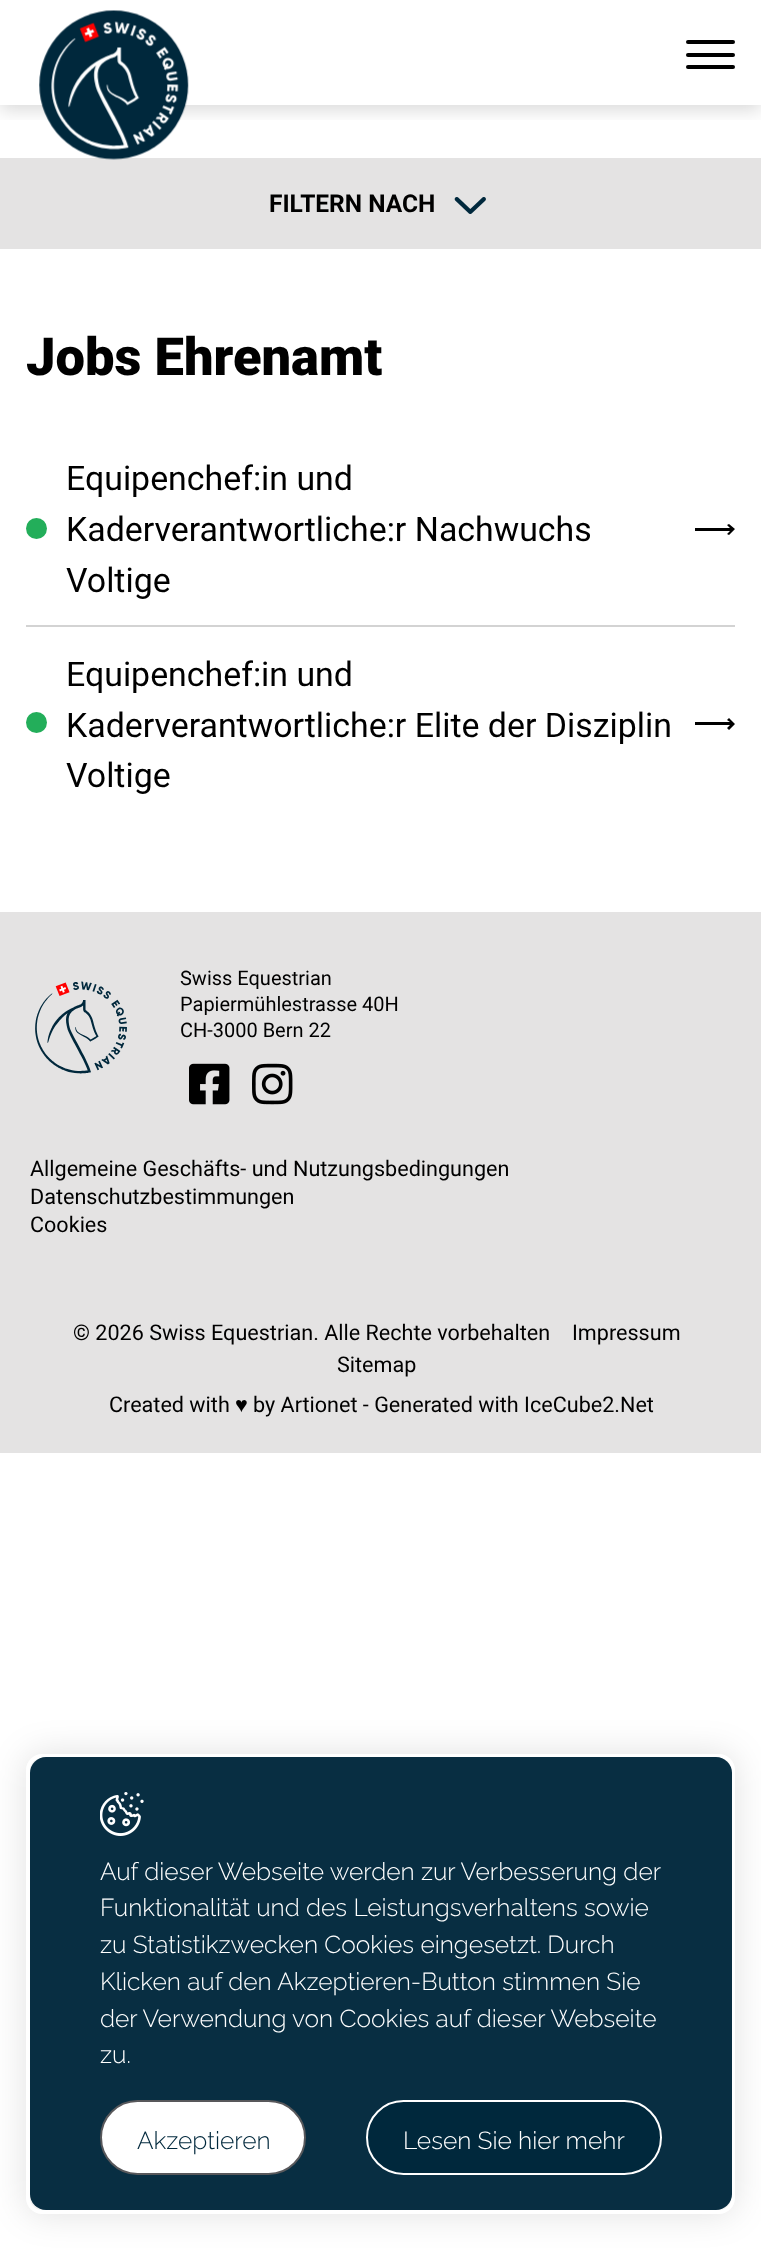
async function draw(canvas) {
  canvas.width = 761;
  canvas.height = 2265;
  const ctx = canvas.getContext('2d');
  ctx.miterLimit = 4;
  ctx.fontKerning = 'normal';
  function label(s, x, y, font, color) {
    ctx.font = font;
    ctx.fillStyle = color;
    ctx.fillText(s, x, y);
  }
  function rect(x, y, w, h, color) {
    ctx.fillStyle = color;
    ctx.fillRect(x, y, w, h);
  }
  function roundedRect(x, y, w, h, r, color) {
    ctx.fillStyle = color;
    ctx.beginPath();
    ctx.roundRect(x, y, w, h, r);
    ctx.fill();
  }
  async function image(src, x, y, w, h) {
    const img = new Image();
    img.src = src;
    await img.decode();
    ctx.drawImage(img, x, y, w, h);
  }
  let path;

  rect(0, 0, 761, 2265, '#fff');
  ctx.save();
  ctx.beginPath();
  ctx.rect(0, 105, 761, 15);
  ctx.clip();
  ctx.fillStyle = '#00000026';
  ctx.filter = 'blur(9px)';
  ctx.beginPath();
  ctx.rect(0, 5, 761, 105);
  ctx.fill();
  ctx.filter = 'none';
  ctx.restore();
  rect(0, 158, 761, 91, '#e4e3e3');
  await image('assets/img1.png', 39, 10, 150, 150);
  roundedRect(686, 40, 49, 4, 2, '#000');
  roundedRect(686, 53, 49, 4, 2, '#000');
  roundedRect(686, 65, 49, 4, 2, '#000');
  label('FILTERN NACH', 269, 212, 'bold 24.5px Roboto', '#000');
  await image('assets/img2.png', 454, 197, 32, 17);
  label('Jobs Ehrenamt', 26, 375, '900 52.5px Roboto', '#000');
  rect(26, 625, 709, 2, '#d3d3d3');
  label('Equipenchef:in und', 66, 490, '33.9px Roboto', '#000');
  ctx.fillStyle = '#23ae5a';
  ctx.beginPath();
  ctx.arc(36.5, 528.5, 10.5, 0, 2 * Math.PI);
  ctx.fill();
  label('Kaderverantwortliche:r Nachwuchs', 66, 541, '33.9px Roboto', '#000');
  path = new Path2D('M729 524L727 525L730 528H695V531H730L727 534L729 535L735 529Z');
  ctx.fill(path);
  label('Voltige', 66, 592, '33.9px Roboto', '#000');
  label('Equipenchef:in und', 66, 686, '33.9px Roboto', '#000');
  ctx.fillStyle = '#23ae5a';
  ctx.beginPath();
  ctx.arc(36.5, 722.5, 10.5, 0, 2 * Math.PI);
  ctx.fill();
  label('Kaderverantwortliche:r Elite der Disziplin', 66, 737, '33.9px Roboto', '#000');
  path = new Path2D('M729 718L727 720L730 722H695V725H730L727 728L729 730L735 724Z');
  ctx.fill(path);
  label('Voltige', 66, 787, '33.9px Roboto', '#000');
  rect(0, 912, 761, 541, '#e4e3e3');
  await image('assets/img3.png', 35, 981, 92, 93);
  label('Swiss Equestrian', 180, 985, '20px Roboto', '#000');
  label('Papiermühlestrasse 40H', 180, 1011, '20px Roboto', '#000');
  label('CH-3000 Bern 22', 180, 1037, '20px Roboto', '#000');
  await image('assets/img4.png', 189, 1063, 41, 42);
  await image('assets/img5.png', 252, 1063, 41, 42);
  label('Allgemeine Geschäfts- und Nutzungsbedingungen', 30, 1176, '21.6px Roboto', '#000');
  label('Datenschutzbestimmungen', 30, 1204, '21.6px Roboto', '#000');
  label('Cookies', 30, 1232, '21.6px Roboto', '#000');
  label('© 2026 Swiss Equestrian. Alle Rechte vorbehalten', 73, 1340, '21.6px Roboto', '#000');
  label('Impressum', 572, 1340, '21.6px Roboto', '#000');
  label('Sitemap', 337, 1372, '21.6px Roboto', '#000');
  label('Created with', 109, 1412, '21.6px Roboto', '#000');
  label('♥', 235, 1412, '21.6px Liberation Serif', '#000');
  label('by Artionet - Generated with IceCube2.Net', 253, 1412, '21.6px Roboto', '#000');
  ctx.fillStyle = '#0000001f';
  ctx.filter = 'blur(17.5px)';
  ctx.beginPath();
  ctx.roundRect(26, 1754, 709, 460, 16);
  ctx.fill();
  ctx.filter = 'none';
  ctx.beginPath();
  ctx.roundRect(28, 1756, 705, 456, 14);
  ctx.strokeStyle = '#fff';
  ctx.lineWidth = 4;
  ctx.stroke();
  roundedRect(30, 1757, 702, 453, 16, '#082e42');
  await image('assets/img6.png', 100, 1792, 44, 44);
  label('Auf dieser Webseite werden zur Verbesserung der', 100, 1880, '300 24.5px Raleway', '#fff');
  label('Funktionalität und des Leistungsverhaltens sowie', 100, 1916, '300 24.5px Raleway', '#fff');
  label('zu Statistikzwecken Cookies eingesetzt. Durch', 100, 1953, '300 24.5px Raleway', '#fff');
  label('Klicken auf den Akzeptieren-Button stimmen Sie', 100, 1990, '300 24.5px Raleway', '#fff');
  label('der Verwendung von Cookies auf dieser Webseite', 100, 2027, '300 24.5px Raleway', '#fff');
  label('zu.', 100, 2063, '300 24.5px Raleway', '#fff');
  ctx.beginPath();
  ctx.roundRect(101, 2101, 204, 73, 36.5);
  ctx.fill();
  ctx.strokeStyle = '#58585b';
  ctx.lineWidth = 2;
  ctx.stroke();
  label('Akzeptieren', 137, 2149, '300 24.5px Raleway', '#00283c');
  ctx.beginPath();
  ctx.roundRect(367, 2101, 294, 73, 36.5);
  ctx.fill();
  ctx.strokeStyle = '#fff';
  ctx.stroke();
  label('Lesen Sie hier mehr', 403, 2149, '300 24.5px Raleway', '#fff');
}

draw(document.querySelector('canvas'));
